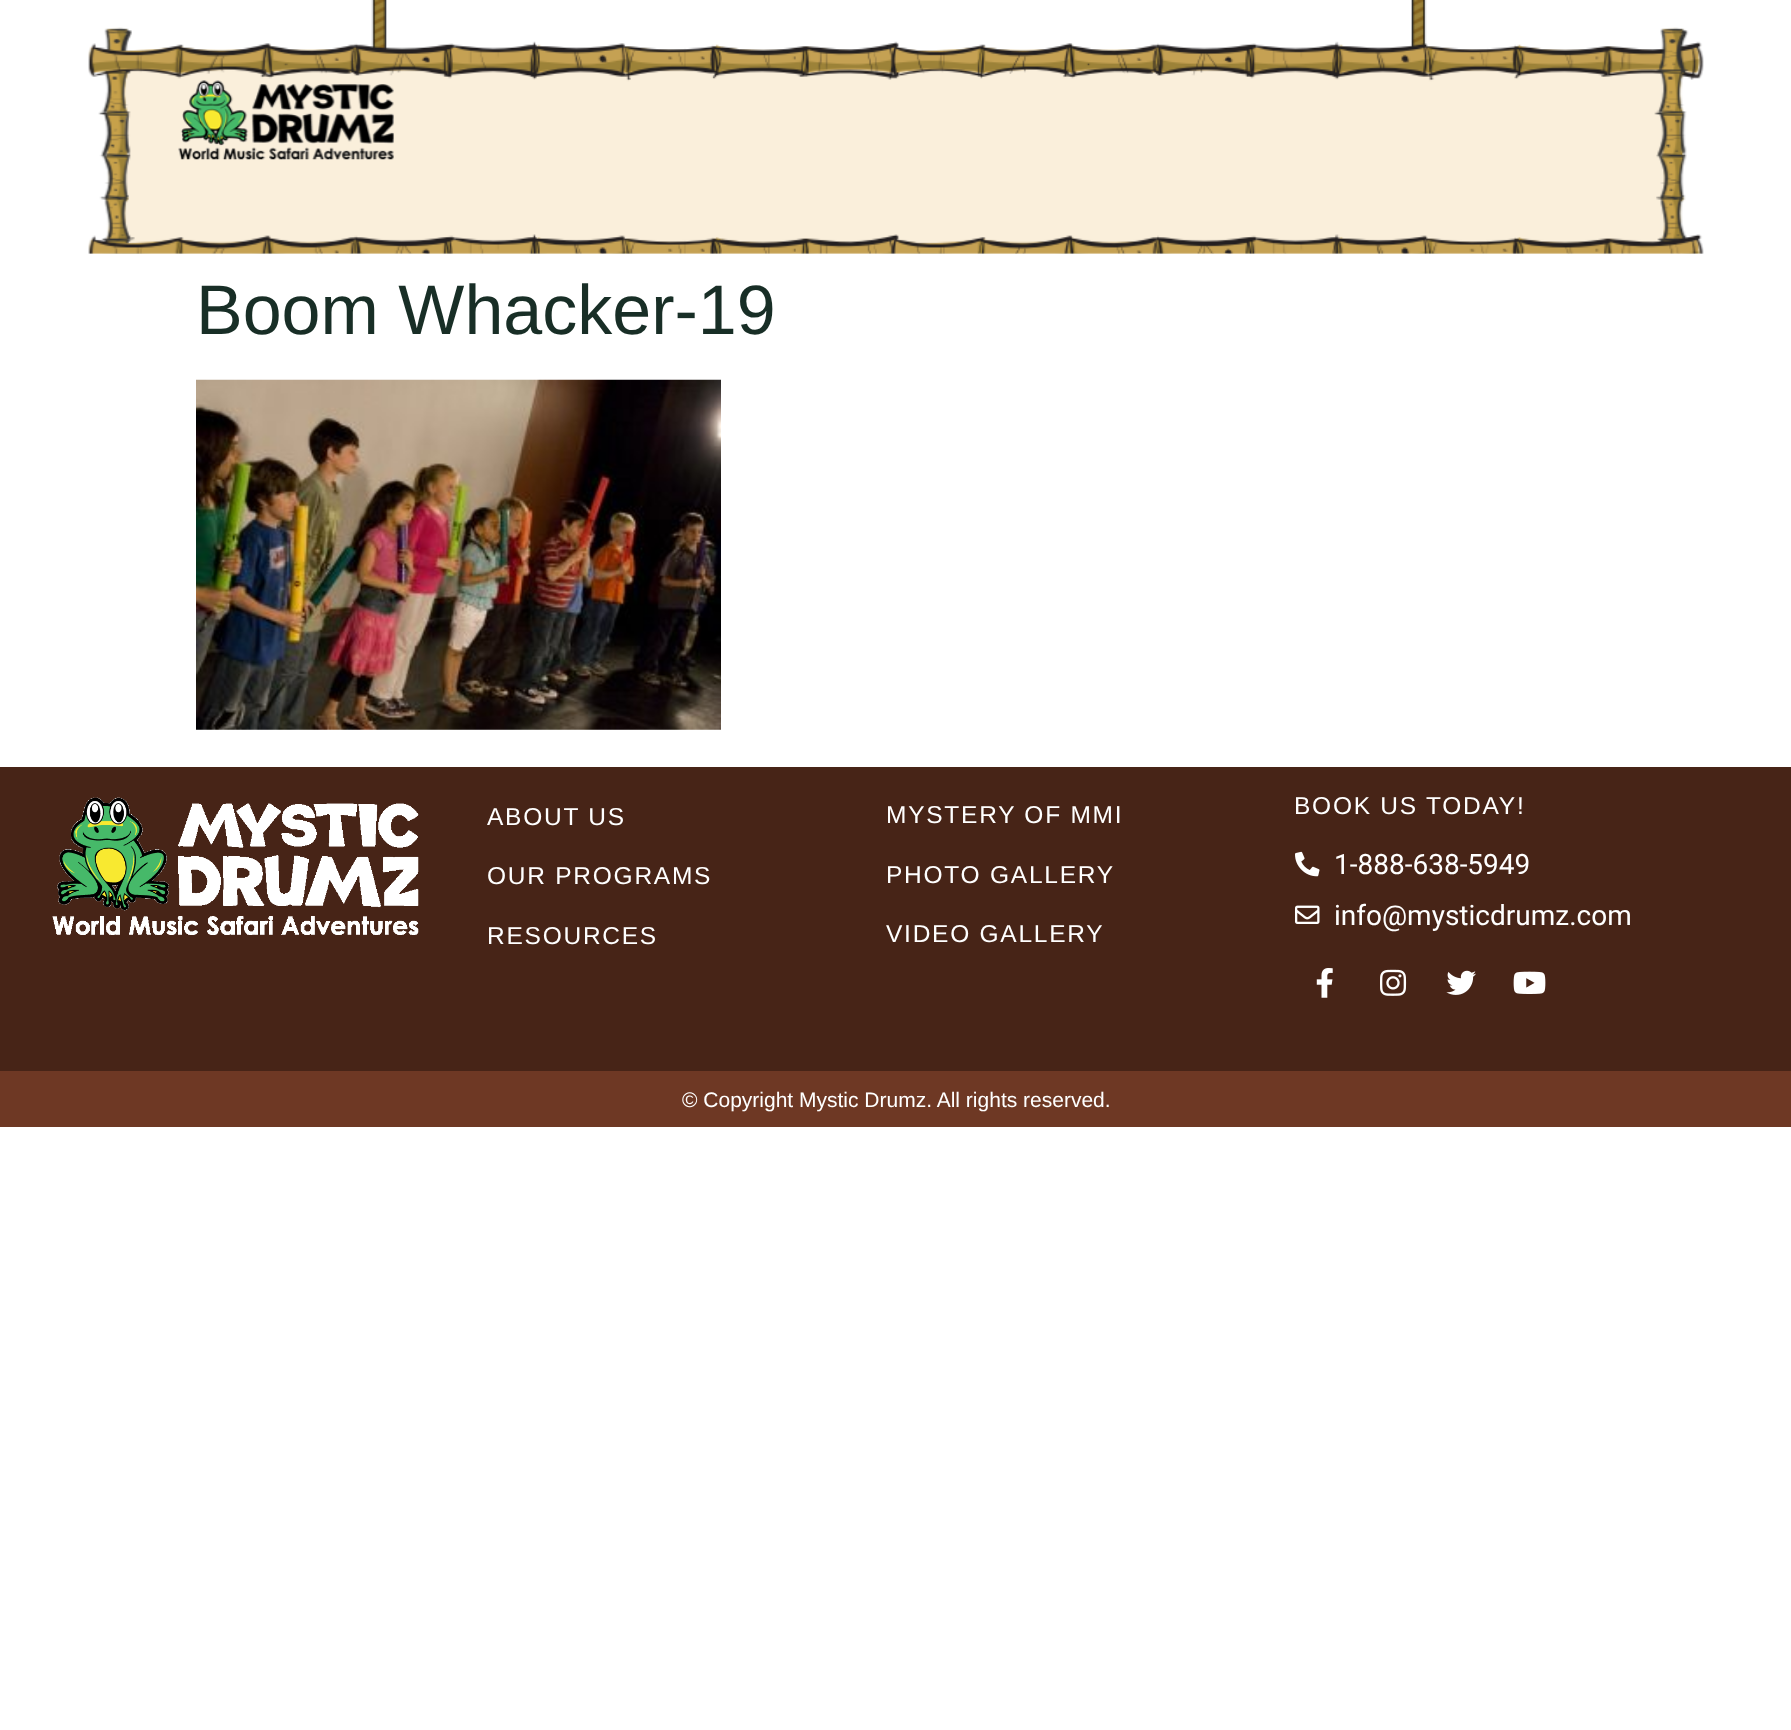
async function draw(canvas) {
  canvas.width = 1791;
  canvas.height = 1730;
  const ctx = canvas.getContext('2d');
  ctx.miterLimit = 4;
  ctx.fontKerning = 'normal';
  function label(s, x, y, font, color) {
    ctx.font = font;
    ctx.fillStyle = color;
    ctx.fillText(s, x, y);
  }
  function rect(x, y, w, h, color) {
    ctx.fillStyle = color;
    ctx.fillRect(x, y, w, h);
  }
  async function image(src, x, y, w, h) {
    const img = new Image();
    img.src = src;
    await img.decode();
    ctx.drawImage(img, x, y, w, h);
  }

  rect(0, 0, 1791, 1730, '#fff');
  await image('assets/img1.png', 88, 0, 1616, 254);
  await image('assets/img2.png', 178, 80, 216, 80);
  label('Boom Whacker-19', 196, 334, '70px Liberation Sans', '#182e26');
  await image('assets/img3.png', 196, 379, 525, 351);
  rect(0, 767, 1791, 304, '#472417');
  await image('assets/img4.png', 52, 797, 367, 138);
  ctx.letterSpacing = '1.75px';
  label('ABOUT US', 487, 825, '24.5px Liberation Sans', '#fff');
  label('OUR PROGRAMS', 487, 884, '24.5px Liberation Sans', '#fff');
  label('RESOURCES', 487, 944, '24.5px Liberation Sans', '#fff');
  label('MYSTERY OF MMI', 886, 823, '24.5px Liberation Sans', '#fff');
  label('PHOTO GALLERY', 886, 883, '24.5px Liberation Sans', '#fff');
  label('VIDEO GALLERY', 886, 942, '24.5px Liberation Sans', '#fff');
  label('BOOK US TODAY!', 1294, 814, '24.5px Liberation Sans', '#fff');
  await image('assets/img5.png', 1295, 851, 25, 26);
  ctx.letterSpacing = '0px';
  label('1-888-638-5949', 1334, 874, '28px Roboto', '#fff');
  await image('assets/img6.png', 1295, 905, 25, 19);
  label('info@mysticdrumz.com', 1334, 925, '28px Roboto', '#fff');
  await image('assets/img7.png', 1316, 968, 17, 30);
  await image('assets/img8.png', 1380, 969, 27, 27);
  await image('assets/img9.png', 1446, 970, 30, 25);
  await image('assets/img10.png', 1513, 971, 33, 23);
  rect(0, 1071, 1791, 56, '#6e3824');
  label('© Copyright Mystic Drumz. All rights reserved.', 682, 1107, '21px Liberation Sans', '#fff');
}

draw(document.querySelector('canvas'));
